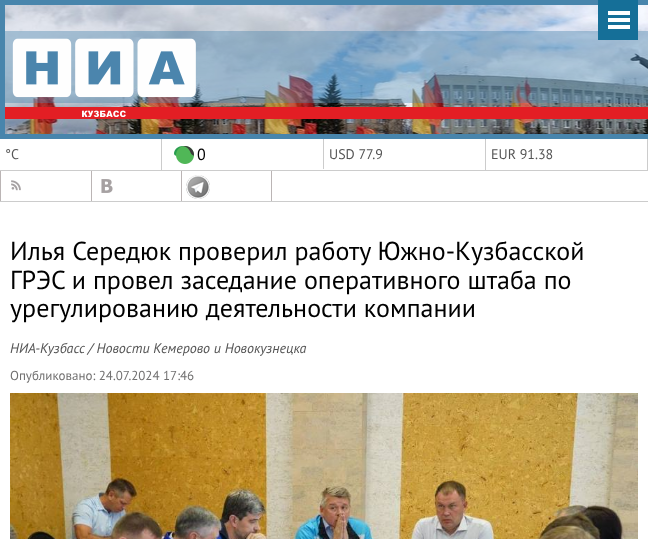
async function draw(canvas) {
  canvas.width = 648;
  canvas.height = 539;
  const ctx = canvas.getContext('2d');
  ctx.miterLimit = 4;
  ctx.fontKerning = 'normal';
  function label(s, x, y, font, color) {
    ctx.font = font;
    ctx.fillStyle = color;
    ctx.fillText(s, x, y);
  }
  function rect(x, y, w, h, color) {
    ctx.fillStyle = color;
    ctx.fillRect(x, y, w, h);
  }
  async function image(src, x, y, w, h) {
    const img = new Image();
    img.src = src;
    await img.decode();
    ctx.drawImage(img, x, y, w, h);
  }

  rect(0, 0, 648, 539, '#fff');
  await image('assets/img1.png', 5, 5, 643, 129);
  rect(0, 0, 648, 5, '#4885ac');
  rect(0, 134, 648, 5, '#4885ac');
  rect(0, 0, 5, 139, '#4885ac');
  rect(5, 31, 643, 72, '#4885ac66');
  rect(5, 107, 643, 12, '#e31e24');
  await image('assets/img2.png', 12, 38, 184, 79);
  rect(598, 0, 40, 40, '#156f98');
  await image('assets/img3.png', 608, 11, 22, 18);
  rect(0, 201, 648, 1, '#ccc');
  rect(161, 139, 1, 31, '#ccc');
  label('°C', 5, 159, '14px PT Sans', '#555');
  rect(323, 139, 1, 30, '#ccc');
  await image('assets/img4.png', 174, 146, 20, 18);
  label('0', 197, 160, '16px PT Sans', '#000');
  rect(485, 139, 1, 31, '#ccc');
  label('USD 77.9', 329, 159, '14px PT Sans', '#555');
  rect(647, 139, 1, 31, '#ccc');
  label('EUR 91.38', 491, 159, '14px PT Sans', '#555');
  rect(0, 170, 648, 1, '#ccc');
  await image('assets/img5.png', 11, 180, 10, 11);
  rect(0, 171, 1, 30, '#bbb5b5');
  await image('assets/img6.png', 101, 179, 12, 14);
  rect(91, 171, 1, 30, '#bbb5b5');
  await image('assets/img7.png', 186, 175, 24, 24);
  rect(271, 171, 1, 30, '#bbb5b5');
  rect(181, 171, 1, 30, '#bbb5b5');
  label('Илья Середюк проверил работу Южно-Кузбасской', 10, 260, '26px PT Sans', '#000');
  label('ГРЭС и провел заседание оперативного штаба по', 10, 289, '26px PT Sans', '#000');
  label('урегулированию деятельности компании', 10, 317, '26px PT Sans', '#000');
  label('НИА-Кузбасс / Новости Кемерово и Новокузнецка', 10, 353, 'italic 14px PT Sans', '#555');
  label('Опубликовано: 24.07.2024 17:46', 10, 380, '13px PT Sans', '#717070');
  await image('assets/img8.png', 10, 393, 628, 146);
}

draw(document.querySelector('canvas'));
